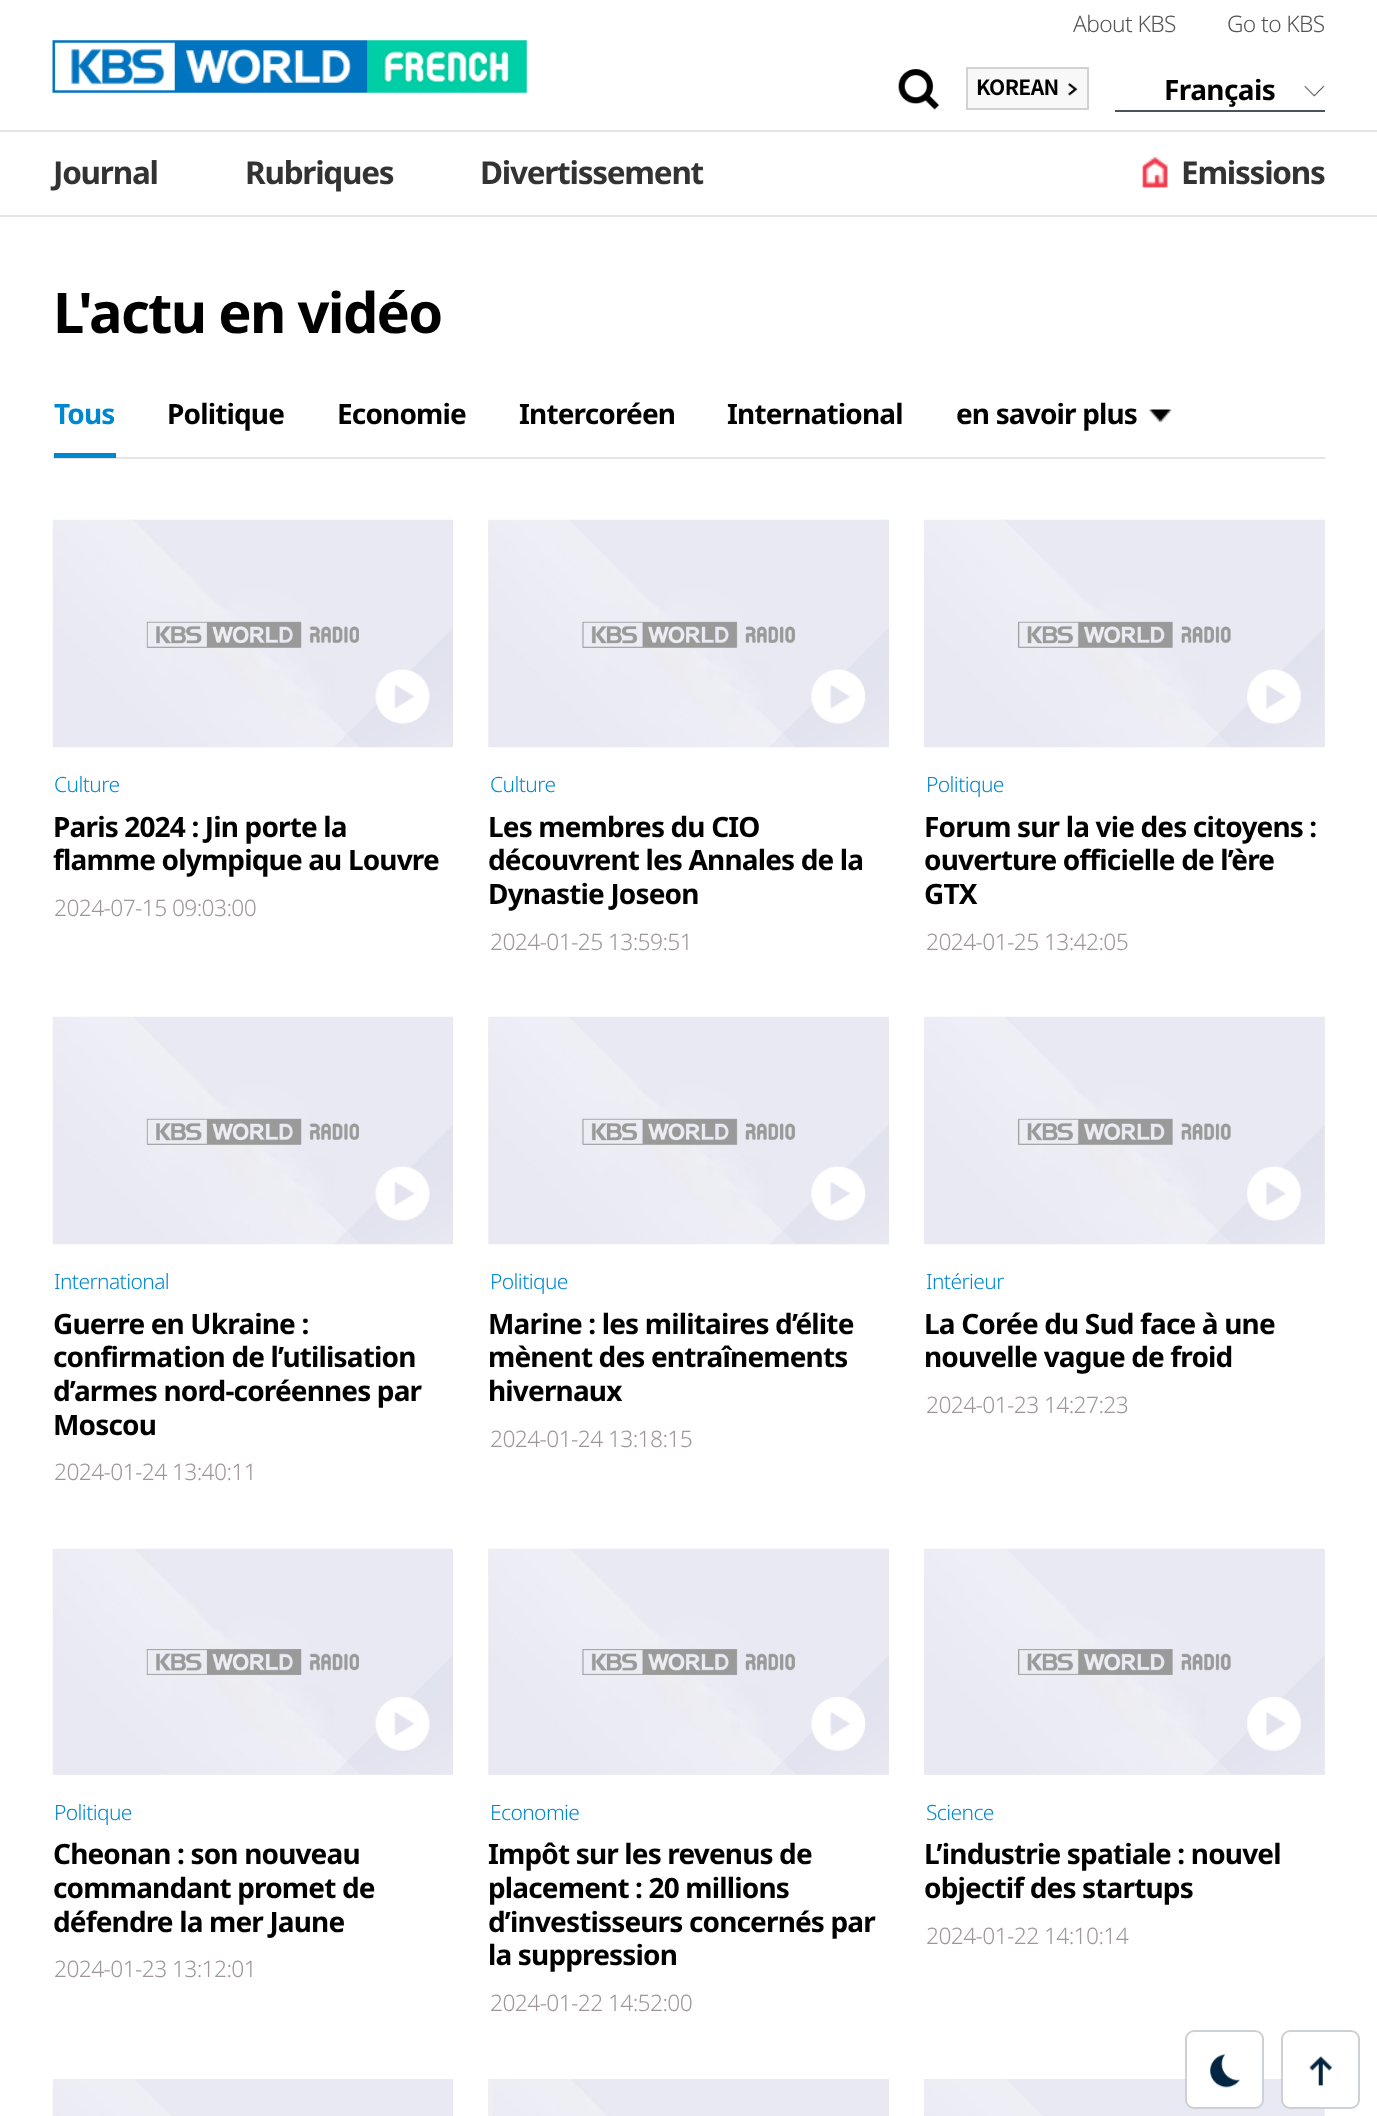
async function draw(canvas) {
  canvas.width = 1377;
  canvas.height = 2116;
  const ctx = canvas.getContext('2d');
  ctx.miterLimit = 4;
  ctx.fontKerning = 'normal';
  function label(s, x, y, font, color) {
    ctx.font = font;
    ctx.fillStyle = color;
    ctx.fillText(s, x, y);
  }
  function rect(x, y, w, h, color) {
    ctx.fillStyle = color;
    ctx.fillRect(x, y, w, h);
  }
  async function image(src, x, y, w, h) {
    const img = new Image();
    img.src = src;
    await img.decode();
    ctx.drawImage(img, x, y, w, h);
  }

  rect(0, 0, 1377, 2116, '#fff');
  ctx.letterSpacing = '-0.6px';
  label('About KBS', 1073, 32, '300 22.75px Noto Sans', '#555');
  label('Go to KBS', 1227, 32, '300 22.75px Noto Sans', '#555');
  await image('assets/img1.png', 52, 40, 475, 53);
  await image('assets/img2.png', 898, 69, 41, 41);
  rect(968, 69, 119, 39, '#f8f8f8');
  await image('assets/img3.png', 1068, 83, 10, 13);
  ctx.strokeStyle = '#d2d2d2';
  ctx.lineWidth = 2;
  ctx.strokeRect(967, 68, 121, 41);
  label('KOREAN', 976, 95, 'bold 21px Noto Sans KR', '#000');
  await image('assets/img4.png', 1303, 85, 22, 12);
  rect(1115, 110, 210, 2, '#4d5356');
  label('Français', 1164, 100, 'bold 28px Noto Sans', '#000');
  rect(0, 130, 1377, 2, '#e5e5e5');
  rect(0, 215, 1377, 2, '#e5e5e5');
  ctx.letterSpacing = '-1.25px';
  label('Journal', 53, 184, 'bold 31.5px Noto Sans', '#333');
  label('Rubriques', 245, 184, 'bold 31.5px Noto Sans', '#333');
  label('Divertissement', 480, 184, 'bold 31.5px Noto Sans', '#333');
  await image('assets/img5.png', 1142, 157, 26, 31);
  label('Emissions', 1181, 184, 'bold 31.5px Noto Sans', '#333');
  await image('assets/img26.png', 924, 2079, 400, 37);
  ctx.fillStyle = '#fff';
  ctx.beginPath();
  ctx.roundRect(1186, 2031, 77, 77, 8);
  ctx.fill();
  ctx.strokeStyle = '#ccd1d6';
  ctx.stroke();
  await image('assets/img6.png', 1209, 2054, 31, 34);
  ctx.beginPath();
  ctx.roundRect(1282, 2031, 77, 77, 8);
  ctx.fill();
  ctx.stroke();
  await image('assets/img7.png', 1309, 2056, 24, 31);
  ctx.letterSpacing = '-1.7px';
  label('L\'actu en vidéo', 53, 333, 'bold 56px Noto Sans', '#000');
  rect(53, 457, 1272, 2, '#e5e5e5');
  ctx.letterSpacing = '-0.85px';
  label('Tous', 54, 424, 'bold 28px Noto Sans', '#0088cf');
  rect(54, 453, 62, 5, '#0088cf');
  label('Politique', 167, 424, 'bold 28px Noto Sans', '#000');
  label('Economie', 337, 424, 'bold 28px Noto Sans', '#000');
  label('Intercoréen', 519, 424, 'bold 28px Noto Sans', '#000');
  label('International', 727, 424, 'bold 28px Noto Sans', '#000');
  await image('assets/img8.png', 1149, 409, 23, 14);
  label('en savoir plus', 956, 424, 'bold 28px Noto Sans', '#000');
  await image('assets/img9.png', 52, 519, 401, 229);
  await image('assets/img10.png', 375, 669, 55, 55);
  ctx.letterSpacing = '-0.6px';
  label('Culture', 54, 792, '300 21px Noto Sans', '#0088cf');
  ctx.letterSpacing = '-0.85px';
  label('Paris 2024 : Jin porte la', 53, 837, 'bold 28px Noto Sans', '#000');
  label('flamme olympique au Louvre', 53, 870, 'bold 28px Noto Sans', '#000');
  ctx.letterSpacing = '-0.6px';
  label('2024-07-15 09:03:00', 54, 916, '300 22.75px Noto Sans', '#9f9699');
  rect(488, 520, 1, 227, '#eeeff4');
  await image('assets/img11.png', 489, 519, 400, 229);
  await image('assets/img12.png', 811, 669, 55, 55);
  label('Culture', 490, 792, '300 21px Noto Sans', '#0088cf');
  ctx.letterSpacing = '-0.85px';
  label('Les membres du CIO', 488, 837, 'bold 28px Noto Sans', '#000');
  label('découvrent les Annales de la', 488, 870, 'bold 28px Noto Sans', '#000');
  label('Dynastie Joseon', 488, 904, 'bold 28px Noto Sans', '#000');
  ctx.letterSpacing = '-0.6px';
  label('2024-01-25 13:59:51', 490, 950, '300 22.75px Noto Sans', '#9f9699');
  rect(1324, 520, 1, 227, '#eeeff4');
  await image('assets/img13.png', 924, 519, 401, 229);
  await image('assets/img14.png', 1247, 669, 54, 55);
  label('Politique', 926, 792, '300 21px Noto Sans', '#0088cf');
  ctx.letterSpacing = '-0.85px';
  label('Forum sur la vie des citoyens :', 924, 837, 'bold 28px Noto Sans', '#000');
  label('ouverture officielle de l’ère', 924, 870, 'bold 28px Noto Sans', '#000');
  label('GTX', 924, 904, 'bold 28px Noto Sans', '#000');
  ctx.letterSpacing = '-0.6px';
  label('2024-01-25 13:42:05', 926, 950, '300 22.75px Noto Sans', '#9f9699');
  await image('assets/img9.png', 52, 1016, 401, 229);
  await image('assets/img15.png', 375, 1166, 55, 55);
  label('International', 54, 1289, '300 21px Noto Sans', '#0088cf');
  ctx.letterSpacing = '-0.85px';
  label('Guerre en Ukraine :', 53, 1334, 'bold 28px Noto Sans', '#000');
  label('confirmation de l’utilisation', 53, 1367, 'bold 28px Noto Sans', '#000');
  label('d’armes nord-coréennes par', 53, 1401, 'bold 28px Noto Sans', '#000');
  label('Moscou', 53, 1435, 'bold 28px Noto Sans', '#000');
  ctx.letterSpacing = '-0.6px';
  label('2024-01-24 13:40:11', 54, 1480, '300 22.75px Noto Sans', '#9f9699');
  rect(488, 1017, 1, 227, '#eeeff4');
  await image('assets/img11.png', 489, 1016, 400, 229);
  await image('assets/img16.png', 811, 1166, 55, 55);
  label('Politique', 490, 1289, '300 21px Noto Sans', '#0088cf');
  ctx.letterSpacing = '-0.85px';
  label('Marine : les militaires d’élite', 488, 1334, 'bold 28px Noto Sans', '#000');
  label('mènent des entraînements', 488, 1367, 'bold 28px Noto Sans', '#000');
  label('hivernaux', 488, 1401, 'bold 28px Noto Sans', '#000');
  ctx.letterSpacing = '-0.6px';
  label('2024-01-24 13:18:15', 490, 1447, '300 22.75px Noto Sans', '#9f9699');
  rect(1324, 1017, 1, 227, '#eeeff4');
  await image('assets/img13.png', 924, 1016, 401, 229);
  await image('assets/img17.png', 1247, 1166, 54, 55);
  label('Intérieur', 926, 1289, '300 21px Noto Sans', '#0088cf');
  ctx.letterSpacing = '-0.85px';
  label('La Corée du Sud face à une', 924, 1334, 'bold 28px Noto Sans', '#000');
  label('nouvelle vague de froid', 924, 1367, 'bold 28px Noto Sans', '#000');
  ctx.letterSpacing = '-0.6px';
  label('2024-01-23 14:27:23', 926, 1413, '300 22.75px Noto Sans', '#9f9699');
  rect(53, 1774, 400, 1, '#eeeff4');
  await image('assets/img18.png', 52, 1548, 401, 227);
  await image('assets/img19.png', 375, 1697, 55, 54);
  label('Politique', 54, 1820, '300 21px Noto Sans', '#0088cf');
  ctx.letterSpacing = '-0.85px';
  label('Cheonan : son nouveau', 53, 1864, 'bold 28px Noto Sans', '#000');
  label('commandant promet de', 53, 1898, 'bold 28px Noto Sans', '#000');
  label('défendre la mer Jaune', 53, 1932, 'bold 28px Noto Sans', '#000');
  ctx.letterSpacing = '-0.6px';
  label('2024-01-23 13:12:01', 54, 1977, '300 22.75px Noto Sans', '#9f9699');
  rect(488, 1549, 401, 226, '#eeeff4');
  await image('assets/img20.png', 489, 1548, 400, 227);
  await image('assets/img21.png', 811, 1697, 55, 54);
  label('Economie', 490, 1820, '300 21px Noto Sans', '#0088cf');
  ctx.letterSpacing = '-0.85px';
  label('Impôt sur les revenus de', 488, 1864, 'bold 28px Noto Sans', '#000');
  label('placement : 20 millions', 488, 1898, 'bold 28px Noto Sans', '#000');
  label('d’investisseurs concernés par', 488, 1932, 'bold 28px Noto Sans', '#000');
  label('la suppression', 488, 1965, 'bold 28px Noto Sans', '#000');
  ctx.letterSpacing = '-0.6px';
  label('2024-01-22 14:52:00', 490, 2011, '300 22.75px Noto Sans', '#9f9699');
  rect(924, 1549, 401, 226, '#eeeff4');
  await image('assets/img22.png', 924, 1548, 401, 227);
  await image('assets/img23.png', 1247, 1697, 54, 54);
  label('Science', 926, 1820, '300 21px Noto Sans', '#0088cf');
  ctx.letterSpacing = '-0.85px';
  label('L’industrie spatiale : nouvel', 924, 1864, 'bold 28px Noto Sans', '#000');
  label('objectif des startups', 924, 1898, 'bold 28px Noto Sans', '#000');
  ctx.letterSpacing = '-0.6px';
  label('2024-01-22 14:10:14', 926, 1944, '300 22.75px Noto Sans', '#9f9699');
  await image('assets/img24.png', 52, 2079, 401, 37);
  rect(488, 2079, 5, 37, '#eeeff4');
  await image('assets/img25.png', 493, 2079, 396, 37);
  rect(1324, 2109, 1, 7, '#eeeff4');
}

draw(document.querySelector('canvas'));
